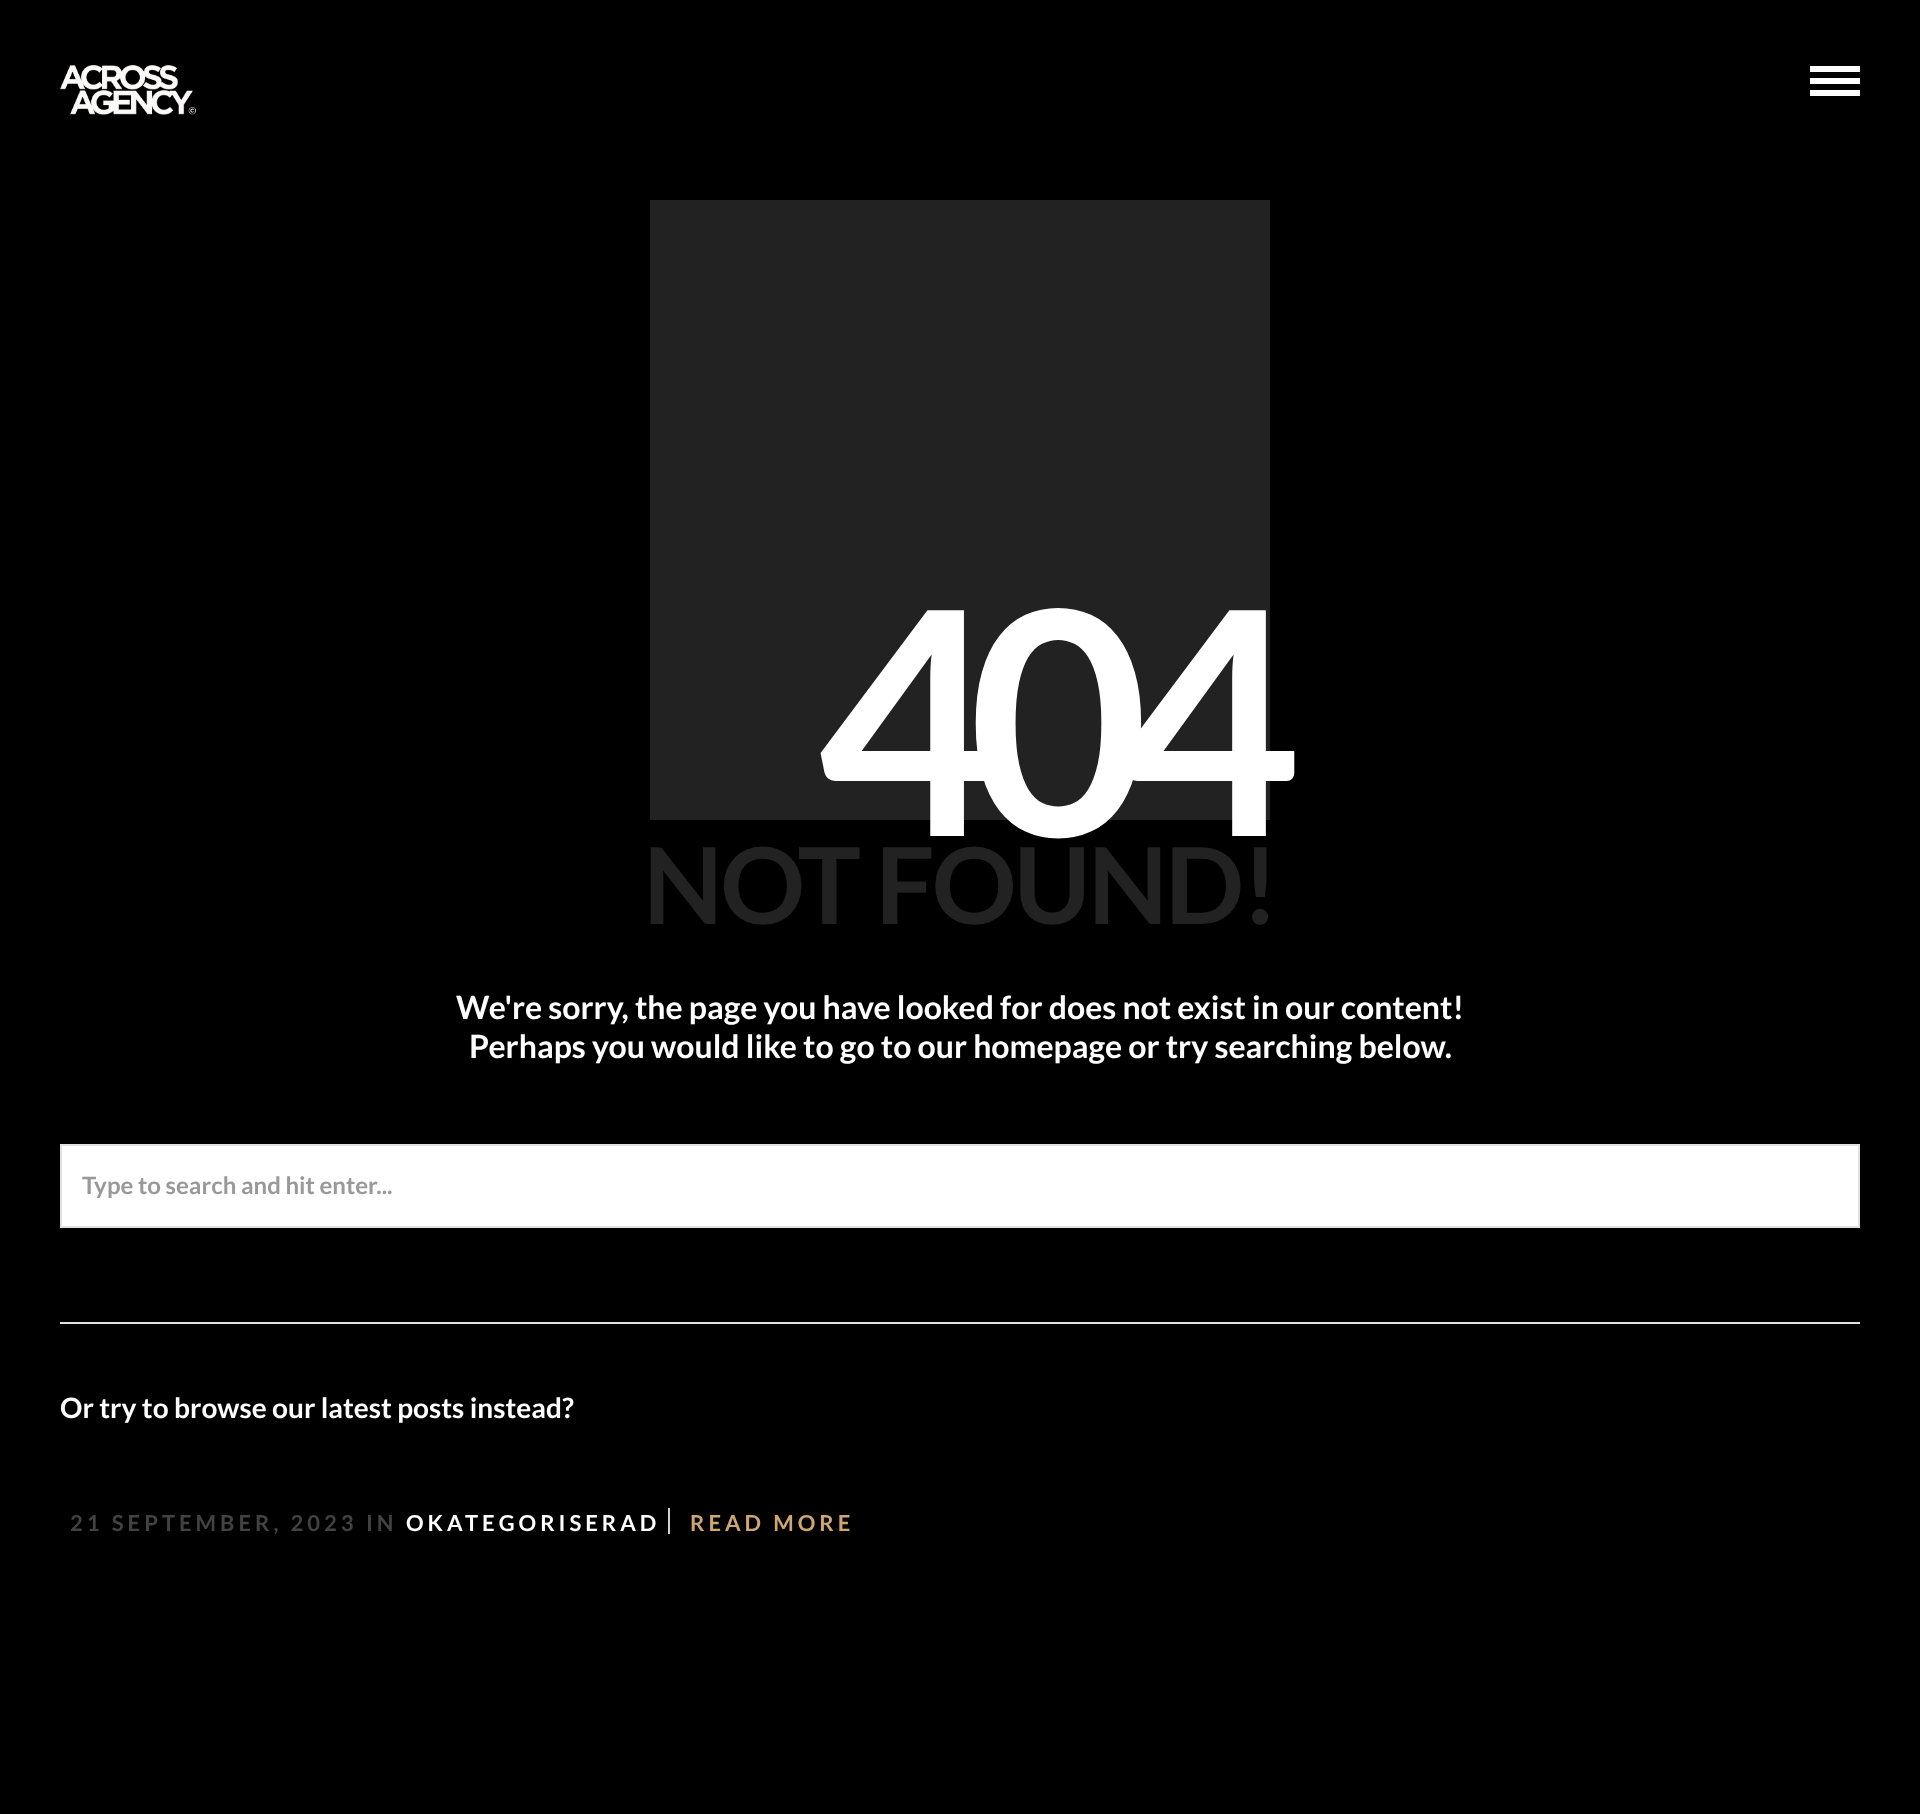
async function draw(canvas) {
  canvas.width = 1920;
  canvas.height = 1814;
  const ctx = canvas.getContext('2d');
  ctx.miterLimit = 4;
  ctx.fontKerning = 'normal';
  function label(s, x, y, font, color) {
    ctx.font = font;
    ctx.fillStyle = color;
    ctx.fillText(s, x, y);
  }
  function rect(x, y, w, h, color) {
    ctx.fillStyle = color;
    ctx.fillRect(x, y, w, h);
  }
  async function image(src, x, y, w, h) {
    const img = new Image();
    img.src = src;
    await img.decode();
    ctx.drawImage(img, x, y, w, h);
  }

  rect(0, 0, 1920, 1814, '#000');
  await image('assets/img1.png', 60, 65, 136, 50);
  rect(1810, 66, 50, 6, '#fff');
  rect(1810, 78, 50, 6, '#fff');
  rect(1810, 90, 50, 6, '#fff');
  rect(650, 200, 620, 620, '#222');
  ctx.letterSpacing = '-30px';
  label('404', 817, 836, 'bold 312px Lato', '#fff');
  ctx.letterSpacing = '-3px';
  label('NOT FOUND!', 643, 924, 'bold 106px Lato', '#222');
  ctx.letterSpacing = '0px';
  label('We\'re sorry, the page you have looked for does not exist in our content!', 456, 1019, 'bold 32px Lato', '#fff');
  label('Perhaps you would like to go to our homepage or try searching below.', 469, 1058, 'bold 32px Lato', '#fff');
  ctx.beginPath();
  ctx.rect(61, 1145, 1798, 82);
  ctx.fill();
  ctx.strokeStyle = '#e1e1e1';
  ctx.lineWidth = 2;
  ctx.stroke();
  label('Type to search and hit enter...', 82, 1194, 'bold 24px Lato', '#999');
  rect(60, 1322, 1800, 2, '#e1e1e1');
  label('Or try to browse our latest posts instead?', 60, 1418, 'bold 28px Lato', '#fff');
  ctx.letterSpacing = '4px';
  label('21 SEPTEMBER, 2023 IN', 70, 1531, 'bold 22px Lato', '#424242');
  label('OKATEGORISERAD', 406, 1531, 'bold 22px Lato', '#fff');
  label('READ MORE', 690, 1531, 'bold 22px Lato', '#cfa670');
  rect(668, 1508, 2, 26, '#d1d1d1');
}

draw(document.querySelector('canvas'));
